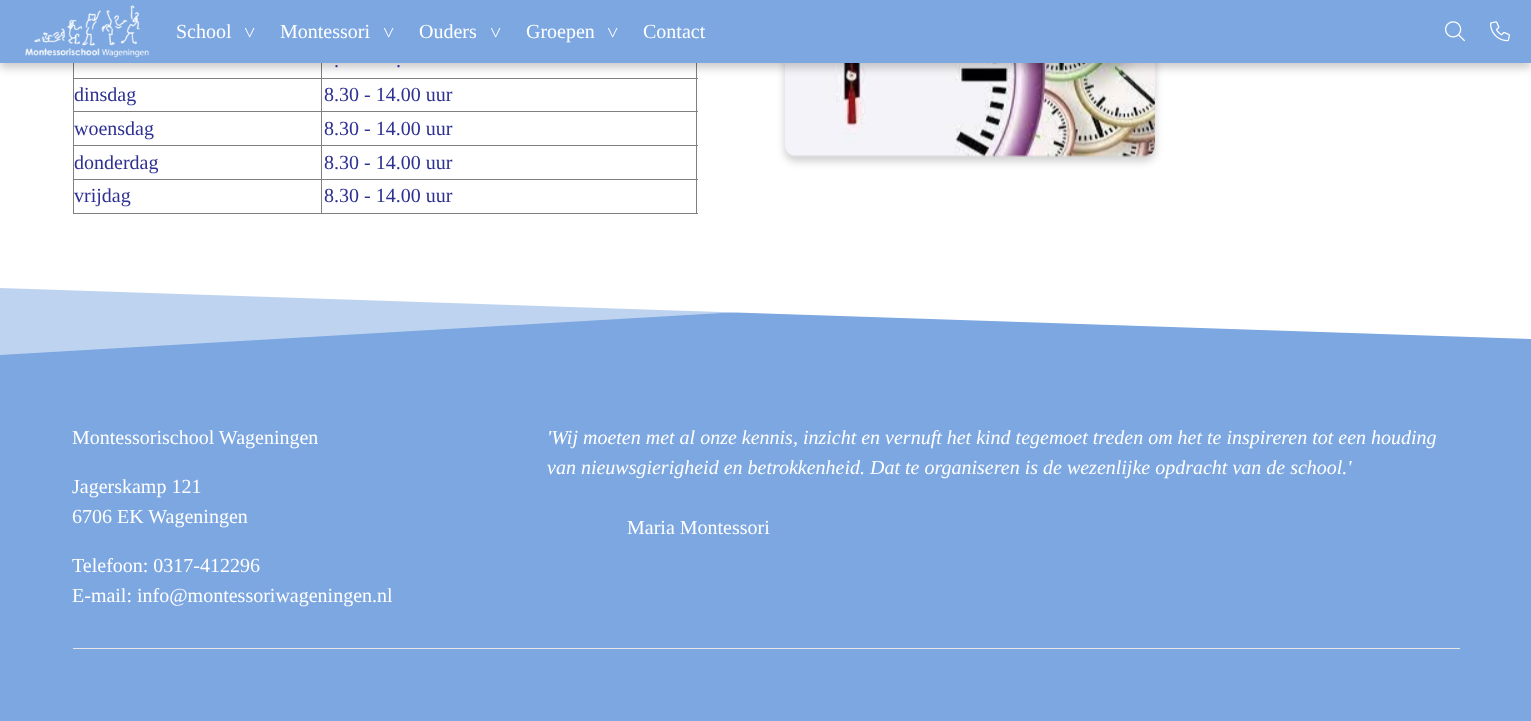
async function draw(canvas) {
  canvas.width = 1531;
  canvas.height = 721;
  const ctx = canvas.getContext('2d');
  ctx.miterLimit = 4;
  ctx.fontKerning = 'normal';
  function label(s, x, y, font, color) {
    ctx.font = font;
    ctx.fillStyle = color;
    ctx.fillText(s, x, y);
  }
  function rect(x, y, w, h, color) {
    ctx.fillStyle = color;
    ctx.fillRect(x, y, w, h);
  }
  async function image(src, x, y, w, h) {
    const img = new Image();
    img.src = src;
    await img.decode();
    ctx.drawImage(img, x, y, w, h);
  }
  let path;

  rect(0, 0, 1531, 721, '#fff');
  ctx.fillStyle = '#00000033';
  ctx.filter = 'blur(4.5px)';
  ctx.beginPath();
  ctx.roundRect(785, -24, 370, 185, 10);
  ctx.fill();
  ctx.filter = 'none';
  rect(0, 0, 1531, 63, '#7ca7e1');
  rect(696, 63, 1, 151, '#808080');
  rect(73, 213, 625, 1, '#808080');
  rect(73, 63, 1, 151, '#808080');
  rect(321, 78, 377, 1, '#808080');
  rect(321, 111, 377, 1, '#808080');
  rect(321, 145, 377, 1, '#808080');
  rect(321, 179, 377, 1, '#808080');
  rect(321, 179, 1, 35, '#808080');
  rect(73, 179, 250, 1, '#808080');
  rect(321, 145, 1, 35, '#808080');
  rect(73, 145, 250, 1, '#808080');
  rect(321, 111, 1, 35, '#808080');
  rect(73, 111, 250, 1, '#808080');
  rect(321, 78, 1, 35, '#808080');
  rect(73, 78, 250, 1, '#808080');
  rect(321, 63, 1, 16, '#808080');
  await image('assets/img4.png', 785, 63, 370, 94);
  ctx.save();
  path = new Path2D('M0 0H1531V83H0ZM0 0H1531V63H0Z');
  ctx.clip(path, 'evenodd');
  ctx.fillStyle = '#00000033';
  ctx.filter = 'blur(4.5px)';
  ctx.beginPath();
  ctx.rect(0, 5, 1531, 63);
  ctx.fill();
  ctx.filter = 'none';
  ctx.restore();
  await image('assets/img1.png', 25, 5, 124, 53);
  label('School', 176, 38, '20px Liberation Serif', '#fff');
  ctx.save();
  ctx.translate(243, 27);
  ctx.rotate(90 * Math.PI / 180);
  ctx.fillText('>', 0, 0);
  ctx.restore();
  label('Montessori', 280, 38, '20px Liberation Serif', '#fff');
  ctx.save();
  ctx.translate(382, 27);
  ctx.rotate(90 * Math.PI / 180);
  ctx.fillText('>', 0, 0);
  ctx.restore();
  label('Ouders', 419, 38, '20px Liberation Serif', '#fff');
  ctx.save();
  ctx.translate(489, 27);
  ctx.rotate(90 * Math.PI / 180);
  ctx.fillText('>', 0, 0);
  ctx.restore();
  label('Groepen', 526, 38, '20px Liberation Serif', '#fff');
  ctx.save();
  ctx.translate(606, 27);
  ctx.rotate(90 * Math.PI / 180);
  ctx.fillText('>', 0, 0);
  ctx.restore();
  label('Contact', 643, 38, '20px Liberation Serif', '#fff');
  await image('assets/img2.png', 1445, 21, 20, 21);
  await image('assets/img3.png', 1490, 21, 20, 21);
  label('.', 334, 67, '20px Liberation Serif', '#2e3192');
  label('.', 396, 67, '20px Liberation Serif', '#2e3192');
  label('dinsdag', 74, 101, '20px Liberation Serif', '#2e3192');
  label('8.30 - 14.00 uur', 324, 101, '20px Liberation Serif', '#2e3192');
  label('woensdag', 74, 135, '20px Liberation Serif', '#2e3192');
  label('8.30 - 14.00 uur', 324, 135, '20px Liberation Serif', '#2e3192');
  label('donderdag', 74, 169, '20px Liberation Serif', '#2e3192');
  label('8.30 - 14.00 uur', 324, 169, '20px Liberation Serif', '#2e3192');
  label('vrijdag', 74, 202, '20px Liberation Serif', '#2e3192');
  label('8.30 - 14.00 uur', 324, 202, '20px Liberation Serif', '#2e3192');
  rect(0, 288, 1531, 433, '#7ca7e1');
  ctx.save();
  ctx.beginPath();
  ctx.rect(0, 249, 1531, 106);
  ctx.clip();
  ctx.fillStyle = '#ffffff80';
  path = new Path2D('M1531 266L0 355V248H1531Z');
  ctx.fill(path);
  ctx.fillStyle = '#fff';
  path = new Path2D('M0 288L1531 339V248H0Z');
  ctx.fill(path);
  ctx.restore();
  label('Montessorischool Wageningen', 72, 444, '20px Liberation Serif', '#fff');
  label('Jagerskamp 121', 72, 493, '20px Liberation Serif', '#fff');
  label('6706 EK Wageningen', 72, 523, '20px Liberation Serif', '#fff');
  label('Telefoon: 0317-412296', 72, 572, '20px Liberation Serif', '#fff');
  label('E-mail: info@montessoriwageningen.nl', 72, 602, '20px Liberation Serif', '#fff');
  label('\'Wij moeten met al onze kennis, inzicht en vernuft het kind tegemoet treden om het te inspireren tot een houding', 547, 444, 'italic 20px Liberation Serif', '#fff');
  label('van nieuwsgierigheid en betrokkenheid. Dat te organiseren is de wezenlijke opdracht van de school.\'', 547, 474, 'italic 20px Liberation Serif', '#fff');
  label('Maria Montessori', 627, 534, '20px Liberation Serif', '#fff');
  rect(73, 648, 1387, 1, '#e6e6e6');
}

draw(document.querySelector('canvas'));
